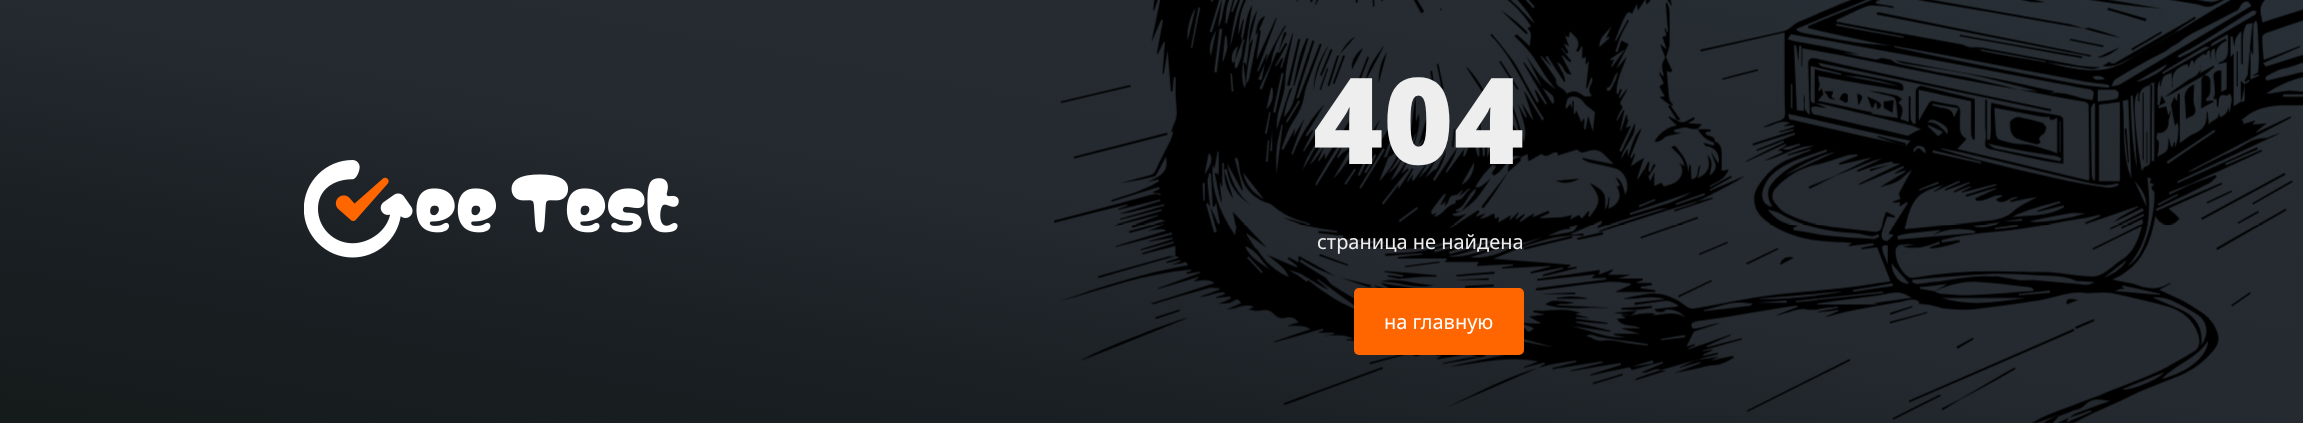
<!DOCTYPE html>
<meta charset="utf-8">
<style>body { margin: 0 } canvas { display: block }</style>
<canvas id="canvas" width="2303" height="423"></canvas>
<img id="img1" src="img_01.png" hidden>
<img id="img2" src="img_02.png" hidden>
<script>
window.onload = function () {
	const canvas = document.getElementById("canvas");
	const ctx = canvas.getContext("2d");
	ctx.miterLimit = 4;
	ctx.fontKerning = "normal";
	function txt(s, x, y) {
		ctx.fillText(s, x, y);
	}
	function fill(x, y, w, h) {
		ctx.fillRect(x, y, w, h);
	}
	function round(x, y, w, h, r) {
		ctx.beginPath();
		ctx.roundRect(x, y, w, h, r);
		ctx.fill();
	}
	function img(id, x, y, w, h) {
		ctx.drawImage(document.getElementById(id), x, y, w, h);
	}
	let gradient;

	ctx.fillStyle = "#FFFFFF";
	fill(0, 0, 2303, 423);
	gradient = ctx.createLinearGradient(1076, 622, 1227, -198);
	gradient.addColorStop(0, "#151A1A");
	gradient.addColorStop(0.25, "#1A1F24");
	gradient.addColorStop(0.5, "#252A30");
	gradient.addColorStop(0.75, "#252B30");
	gradient.addColorStop(1, "#282F36");
	ctx.fillStyle = gradient;
	fill(0, 0, 2303, 423);
	img("img1", 1054, 0, 1249, 423);
	img("img2", 304, 160, 375, 98);
	ctx.fillStyle = "#FF6600";
	round(1354, 288, 170, 67, 5);
	ctx.font = "900 120px Noto Sans";
	ctx.fillStyle = "#EEEEEE";
	txt("404", 1313, 164);
	ctx.font = "20px Noto Sans";
	txt("страница не найдена", 1317, 249);
	ctx.fillStyle = "#FFFFFF";
	txt("на главную", 1384, 329);
};
</script>
